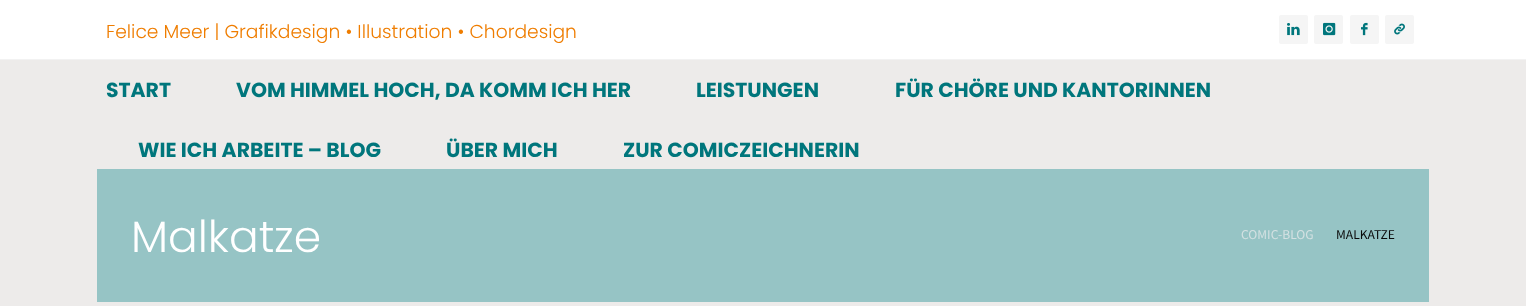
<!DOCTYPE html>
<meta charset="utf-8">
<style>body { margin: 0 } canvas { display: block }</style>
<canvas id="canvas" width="1526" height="306"></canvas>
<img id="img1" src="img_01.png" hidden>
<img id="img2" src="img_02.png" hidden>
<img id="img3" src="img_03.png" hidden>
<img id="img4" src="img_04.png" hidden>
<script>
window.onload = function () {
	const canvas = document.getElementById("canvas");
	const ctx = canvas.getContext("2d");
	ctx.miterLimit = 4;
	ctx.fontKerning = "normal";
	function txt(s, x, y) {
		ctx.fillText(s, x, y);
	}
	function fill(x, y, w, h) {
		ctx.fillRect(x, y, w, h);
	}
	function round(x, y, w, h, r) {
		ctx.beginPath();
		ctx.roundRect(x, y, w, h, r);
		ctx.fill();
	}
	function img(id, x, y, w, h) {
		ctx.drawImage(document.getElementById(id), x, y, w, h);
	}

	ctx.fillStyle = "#EDEBEA";
	fill(0, 0, 1526, 306);
	ctx.fillStyle = "#FFFFFF";
	fill(0, 0, 1526, 59);
	ctx.fillStyle = "#F2F2F2";
	fill(0, 59, 1526, 1);
	ctx.fillStyle = "#F5F5F5";
	round(1279, 15, 29, 29, 2);
	img("img1", 1287, 23, 13, 13);
	round(1314, 15, 29, 29, 2);
	img("img2", 1323, 22, 13, 14);
	round(1350, 15, 29, 29, 2);
	img("img3", 1361, 22, 7, 14);
	round(1385, 15, 29, 29, 2);
	img("img4", 1394, 23, 11, 12);
	ctx.fillStyle = "#96C4C5";
	fill(97, 169, 1332, 133);
	ctx.font = "300 18.7px Poppins";
	ctx.fillStyle = "#EF7D00";
	txt("Felice Meer | Grafikdesign • Illustration • Chordesign", 106, 38);
	ctx.font = "bold 20.4px Poppins";
	ctx.fillStyle = "#00767C";
	txt("START", 106, 97);
	txt("VOM HIMMEL HOCH, DA KOMM ICH HER", 236, 97);
	txt("LEISTUNGEN", 696, 97);
	txt("FÜR CHÖRE UND KANTORINNEN", 895, 97);
	txt("WIE ICH ARBEITE – BLOG", 138, 157);
	txt("ÜBER MICH", 446, 157);
	txt("ZUR COMICZEICHNERIN", 623, 157);
	ctx.font = "300 44px Poppins";
	ctx.fillStyle = "#FFFFFF";
	txt("Malkatze", 131, 252);
	ctx.font = "13.5px Source Sans Pro";
	ctx.fillStyle = "#D4E1E2";
	txt("COMIC-BLOG", 1241, 239);
	ctx.fillStyle = "#0A0A0A";
	txt("MALKATZE", 1336, 239);
};
</script>
